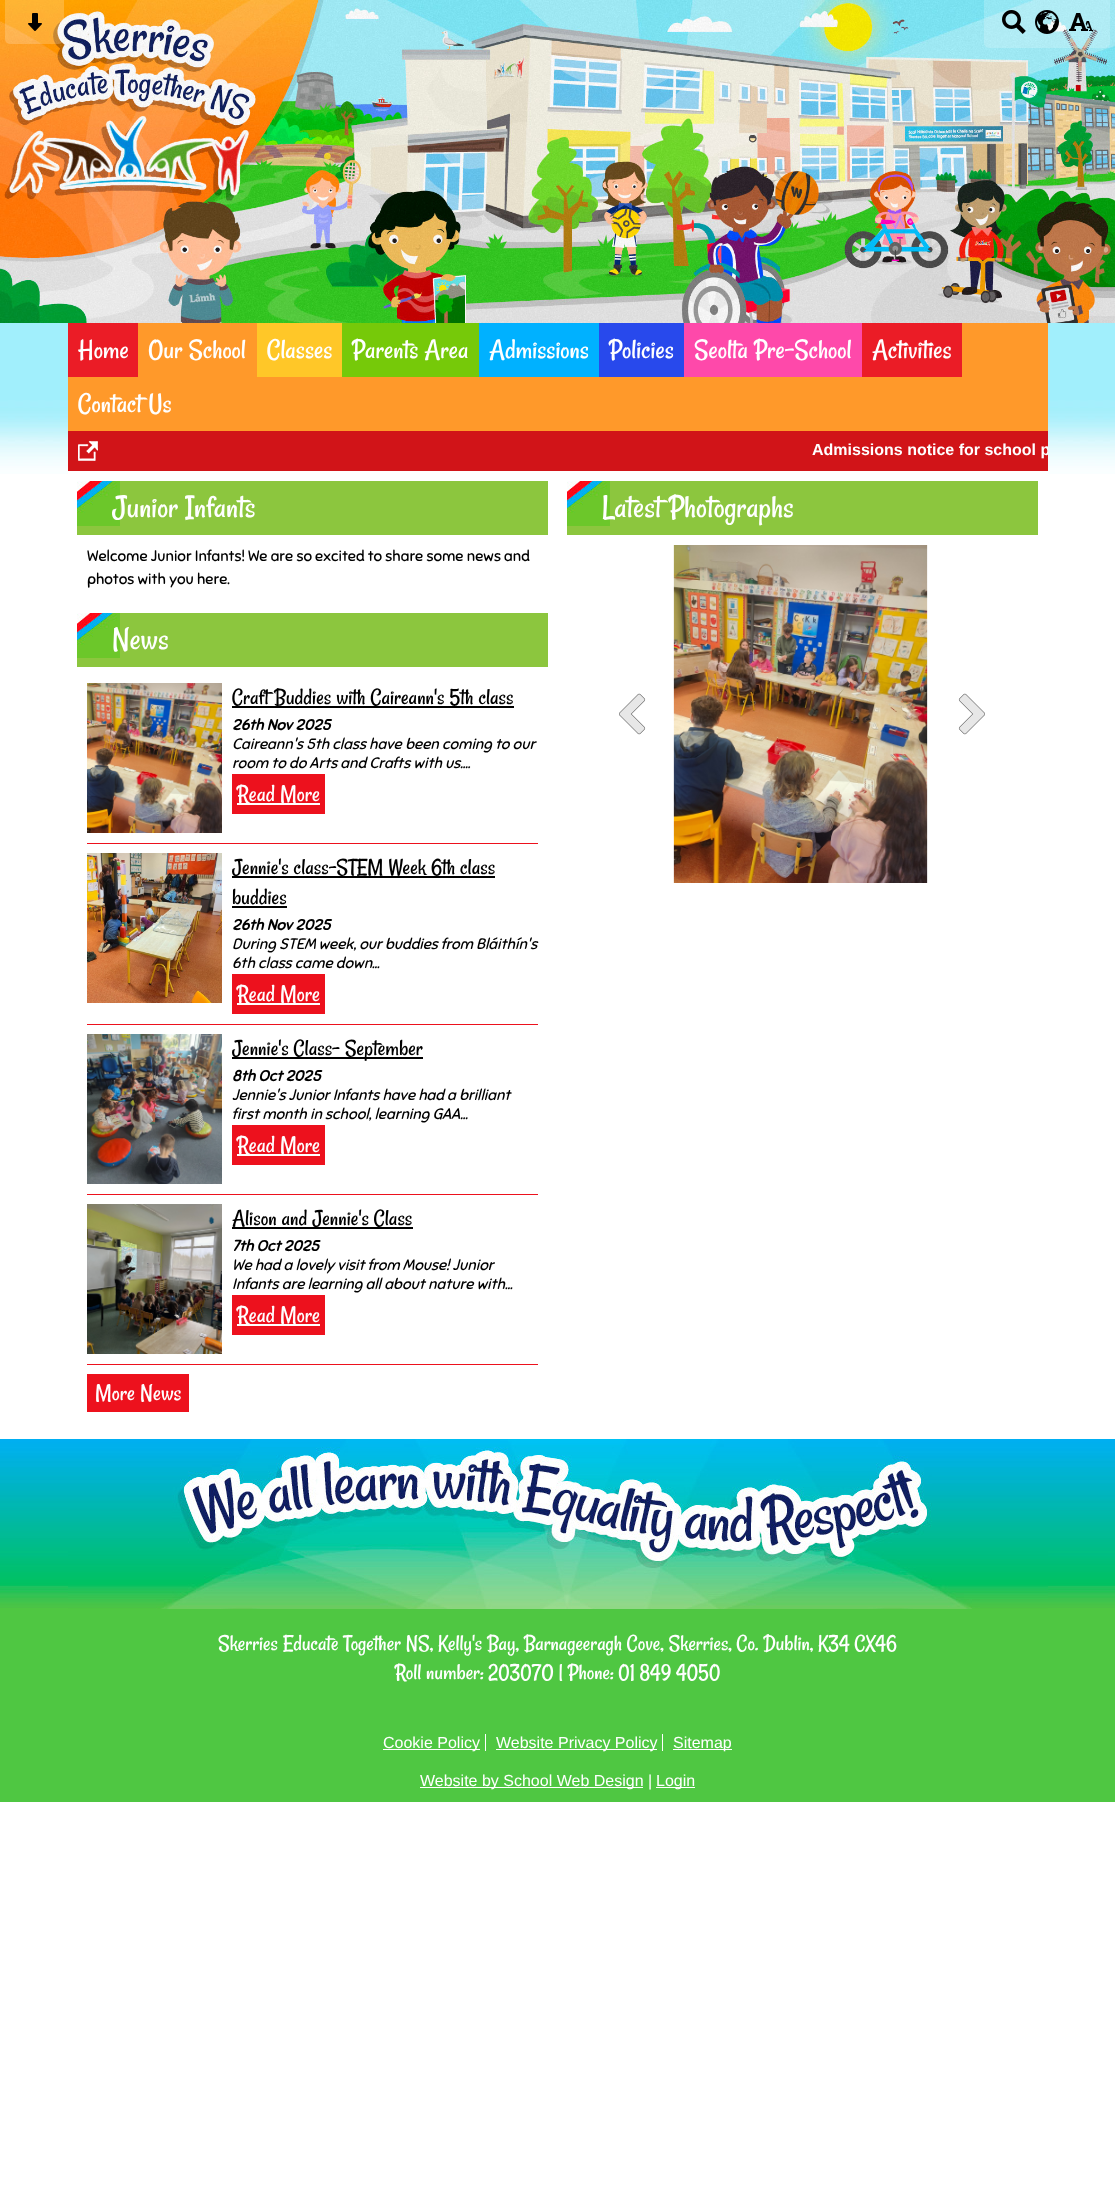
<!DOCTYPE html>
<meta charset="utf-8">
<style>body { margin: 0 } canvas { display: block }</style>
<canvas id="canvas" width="1115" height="2205"></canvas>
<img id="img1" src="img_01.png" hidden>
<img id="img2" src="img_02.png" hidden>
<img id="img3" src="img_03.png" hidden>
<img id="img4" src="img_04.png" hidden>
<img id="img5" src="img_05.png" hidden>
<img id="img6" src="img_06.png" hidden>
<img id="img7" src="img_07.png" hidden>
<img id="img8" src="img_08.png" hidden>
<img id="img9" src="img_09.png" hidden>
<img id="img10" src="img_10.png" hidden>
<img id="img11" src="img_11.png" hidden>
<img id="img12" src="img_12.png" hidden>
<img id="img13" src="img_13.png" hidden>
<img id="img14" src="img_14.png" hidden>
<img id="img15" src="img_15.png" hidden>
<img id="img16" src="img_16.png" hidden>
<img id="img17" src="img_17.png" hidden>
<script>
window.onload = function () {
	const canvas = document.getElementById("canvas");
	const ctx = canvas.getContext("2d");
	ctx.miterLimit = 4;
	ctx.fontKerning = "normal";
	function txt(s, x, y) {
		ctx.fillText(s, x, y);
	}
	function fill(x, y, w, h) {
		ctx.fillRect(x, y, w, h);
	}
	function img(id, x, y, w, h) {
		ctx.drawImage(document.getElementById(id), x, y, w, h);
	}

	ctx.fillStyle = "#FFFFFF";
	fill(0, 0, 1115, 2205);
	img("img1", 0, 323, 1115, 151);
	img("img2", 0, 0, 1115, 323);
	ctx.fillStyle = "rgba(255, 255, 255, 0.2)";
	ctx.beginPath();
	ctx.roundRect(5, 0, 59, 44, [0, 0, 5, 5]);
	ctx.fill();
	img("img3", 28, 13, 14, 18);
	ctx.beginPath();
	ctx.roundRect(984, 0, 126, 48, [0, 0, 5, 5]);
	ctx.fill();
	img("img4", 1002, 10, 24, 24);
	img("img5", 1035, 10, 24, 24);
	img("img6", 1069, 13, 24, 18);
	ctx.fillStyle = "#FF992A";
	fill(68, 323, 980, 108);
	ctx.fillStyle = "#EB1C26";
	fill(68, 323, 70, 54);
	ctx.fillStyle = "#FFC728";
	fill(257, 323, 85, 54);
	ctx.fillStyle = "#76C909";
	fill(342, 323, 137, 54);
	ctx.fillStyle = "#00B1FF";
	fill(479, 323, 120, 54);
	ctx.fillStyle = "#2849EC";
	fill(599, 323, 85, 54);
	ctx.fillStyle = "#FE49AA";
	fill(684, 323, 178, 54);
	ctx.fillStyle = "#EB1C26";
	fill(862, 323, 100, 54);
	ctx.fillStyle = "#D11418";
	fill(68, 431, 980, 40);
	img("img7", 78, 441, 20, 20);
	ctx.fillStyle = "#FFFFFF";
	fill(68, 471, 980, 3);
	ctx.fillStyle = "#8CC63E";
	fill(77, 481, 471, 54);
	img("img8", 77, 481, 43, 45);
	fill(77, 613, 471, 54);
	img("img8", 77, 613, 43, 45);
	ctx.fillStyle = "#ED111D";
	fill(87, 843, 451, 1);
	img("img9", 87, 683, 135, 150);
	ctx.fillStyle = "#000000";
	fill(232, 706, 282, 2);
	ctx.fillStyle = "#ED111D";
	fill(232, 774, 93, 40);
	ctx.fillStyle = "#FFFFFF";
	fill(237, 803, 83, 2);
	ctx.fillStyle = "#ED111D";
	fill(87, 1024, 451, 1);
	img("img10", 87, 853, 135, 150);
	ctx.fillStyle = "#000000";
	fill(232, 876, 263, 2);
	fill(232, 906, 55, 2);
	ctx.fillStyle = "#ED111D";
	fill(232, 974, 93, 40);
	ctx.fillStyle = "#FFFFFF";
	fill(237, 1003, 83, 2);
	ctx.fillStyle = "#ED111D";
	fill(87, 1194, 451, 1);
	img("img11", 87, 1034, 135, 150);
	ctx.fillStyle = "#000000";
	fill(232, 1057, 191, 2);
	ctx.fillStyle = "#ED111D";
	fill(232, 1125, 93, 40);
	ctx.fillStyle = "#FFFFFF";
	fill(237, 1154, 83, 2);
	ctx.fillStyle = "#ED111D";
	fill(87, 1364, 451, 1);
	img("img12", 87, 1204, 135, 150);
	ctx.fillStyle = "#000000";
	fill(232, 1227, 181, 2);
	ctx.fillStyle = "#ED111D";
	fill(232, 1295, 93, 40);
	ctx.fillStyle = "#FFFFFF";
	fill(237, 1324, 83, 2);
	ctx.fillStyle = "#ED111D";
	fill(87, 1374, 102, 38);
	ctx.fillStyle = "#8CC63E";
	fill(567, 481, 471, 54);
	img("img8", 567, 481, 43, 45);
	img("img13", 619, 693, 27, 42);
	img("img14", 673, 545, 255, 338);
	img("img15", 958, 693, 27, 42);
	ctx.fillStyle = "#4FC742";
	fill(0, 1608, 1115, 194);
	img("img16", 0, 1439, 1115, 169);
	img("img17", 68, 1439, 980, 170);
	ctx.fillStyle = "#FFFFFF";
	fill(485, 1734, 1, 17);
	fill(383, 1749, 97, 1);
	fill(662, 1734, 1, 17);
	fill(496, 1749, 161, 1);
	fill(673, 1749, 59, 1);
	fill(420, 1787, 223, 1);
	fill(656, 1787, 39, 1);
	ctx.font = "28.5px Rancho";
	txt("Home", 78, 358);
	txt("Our School", 148, 358);
	txt("Classes", 267, 358);
	txt("Parents Area", 352, 358);
	txt("Admissions", 489, 358);
	txt("Policies", 609, 358);
	txt("Seolta Pre-School", 694, 358);
	txt("Activities", 872, 358);
	txt("Contact Us", 78, 412);
	ctx.save();
	ctx.beginPath();
	ctx.rect(68, 431, 980, 40);
	ctx.clip();
	ctx.font = "bold 16px Liberation Sans";
	txt("Admissions notice for school p", 812, 455);
	ctx.restore();
	ctx.font = "33.5px Rancho";
	txt("Junior Infants", 112, 517);
	ctx.font = "15.2px Sniglet";
	ctx.fillStyle = "#000000";
	txt("Welcome Junior Infants! We are so excited to share some news and", 87, 561);
	txt("photos with you here.", 87, 584);
	ctx.font = "33.5px Rancho";
	ctx.fillStyle = "#FFFFFF";
	txt("News", 112, 649);
	ctx.font = "23.4px Rancho";
	ctx.fillStyle = "#000000";
	txt("Craft Buddies with Caireann's 5th class", 232, 704);
	ctx.font = "italic bold 15.2px Sniglet";
	txt("26th Nov 2025", 232, 730);
	ctx.font = "italic 15.2px Sniglet";
	txt("Caireann's 5th class have been coming to our", 232, 749);
	txt("room to do Arts and Crafts with us....", 232, 768);
	ctx.font = "24.5px Rancho";
	ctx.fillStyle = "#FFFFFF";
	txt("Read More", 237, 801);
	ctx.font = "23.4px Rancho";
	ctx.fillStyle = "#000000";
	txt("Jennie's class-STEM Week 6th class", 232, 874);
	txt("buddies", 232, 904);
	ctx.font = "italic bold 15.2px Sniglet";
	txt("26th Nov 2025", 232, 930);
	ctx.font = "italic 15.2px Sniglet";
	txt("During STEM week, our buddies from Bláithín's", 232, 949);
	txt("6th class came down...", 232, 968);
	ctx.font = "24.5px Rancho";
	ctx.fillStyle = "#FFFFFF";
	txt("Read More", 237, 1001);
	ctx.font = "23.4px Rancho";
	ctx.fillStyle = "#000000";
	txt("Jennie's Class- September", 232, 1055);
	ctx.font = "italic bold 15.2px Sniglet";
	txt("8th Oct 2025", 232, 1081);
	ctx.font = "italic 15.2px Sniglet";
	txt("Jennie's Junior Infants have had a brilliant", 232, 1100);
	txt("first month in school, learning GAA...", 232, 1119);
	ctx.font = "24.5px Rancho";
	ctx.fillStyle = "#FFFFFF";
	txt("Read More", 237, 1152);
	ctx.font = "23.4px Rancho";
	ctx.fillStyle = "#000000";
	txt("Alison and Jennie's Class", 232, 1225);
	ctx.font = "italic bold 15.2px Sniglet";
	txt("7th Oct 2025", 232, 1251);
	ctx.font = "italic 15.2px Sniglet";
	txt("We had a lovely visit from Mouse! Junior", 232, 1270);
	txt("Infants are learning all about nature with...", 232, 1289);
	ctx.font = "24.5px Rancho";
	ctx.fillStyle = "#FFFFFF";
	txt("Read More", 237, 1322);
	txt("More News", 95, 1400);
	ctx.font = "33.5px Rancho";
	txt("Latest Photographs", 602, 517);
	ctx.font = "23.05px Rancho";
	txt("Skerries Educate Together NS, Kelly's Bay, Barnageeragh Cove, Skerries, Co. Dublin, K34 CX46", 218, 1650);
	txt("Roll number: 20307O | Phone: 01 849 4050", 395, 1679);
	ctx.font = "16px Liberation Sans";
	txt("Cookie Policy", 383, 1748);
	txt("Website Privacy Policy", 496, 1748);
	txt("Sitemap", 673, 1748);
	txt("Website by School Web Design |", 420, 1786);
	txt("Login", 656, 1786);
};
</script>
